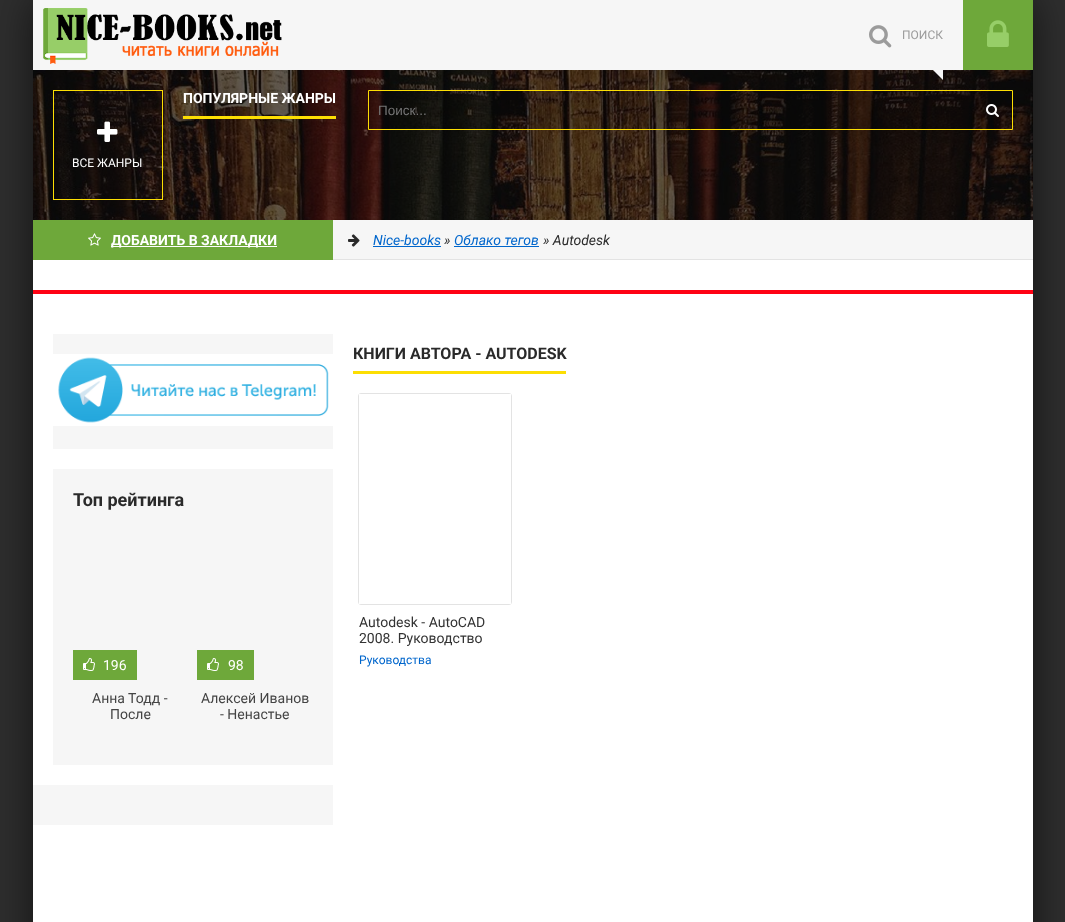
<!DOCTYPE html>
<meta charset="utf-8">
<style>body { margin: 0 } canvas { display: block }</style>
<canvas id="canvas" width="1065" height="922"></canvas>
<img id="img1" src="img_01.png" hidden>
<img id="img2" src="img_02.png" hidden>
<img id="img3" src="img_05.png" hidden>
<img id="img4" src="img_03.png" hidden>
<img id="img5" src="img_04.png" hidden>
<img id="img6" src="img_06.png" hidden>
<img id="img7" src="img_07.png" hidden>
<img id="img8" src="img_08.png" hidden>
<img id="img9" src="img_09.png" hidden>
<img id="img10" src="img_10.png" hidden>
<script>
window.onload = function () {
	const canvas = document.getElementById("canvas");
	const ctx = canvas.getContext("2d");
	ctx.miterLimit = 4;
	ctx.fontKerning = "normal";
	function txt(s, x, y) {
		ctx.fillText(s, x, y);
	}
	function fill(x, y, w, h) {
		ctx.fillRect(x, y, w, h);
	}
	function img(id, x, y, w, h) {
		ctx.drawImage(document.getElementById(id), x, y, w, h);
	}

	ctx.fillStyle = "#2E2E2E";
	fill(0, 0, 1065, 922);
	ctx.fillStyle = "rgba(0, 0, 0, 0.6)";
	ctx.filter = "blur(20px)";
	ctx.beginPath();
	ctx.rect(33, 0, 1000, 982);
	ctx.fill();
	ctx.filter = "none";
	ctx.fillStyle = "#FFFFFF";
	fill(33, 260, 1000, 662);
	ctx.fillStyle = "#F6F6F6";
	fill(33, 0, 930, 70);
	img("img1", 43, 8, 239, 56);
	img("img2", 869, 25, 23, 23);
	img("img3", 33, 70, 1000, 150);
	ctx.beginPath();
	ctx.moveTo(943, 70);
	ctx.lineTo(943, 80);
	ctx.lineTo(933, 70);
	ctx.closePath();
	ctx.fill();
	ctx.fillStyle = "#6EA83A";
	fill(963, 0, 70, 70);
	img("img4", 987, 20, 22, 27);
	ctx.fillStyle = "rgba(0, 0, 0, 0.1)";
	ctx.beginPath();
	ctx.rect(368.5, 90.5, 644, 39);
	ctx.fill();
	ctx.strokeStyle = "#FCDE03";
	ctx.stroke();
	img("img5", 986, 104, 13, 13);
	ctx.fillStyle = "#FCDE03";
	fill(183, 116, 153, 3);
	ctx.strokeRect(53.5, 90.5, 109, 109);
	img("img6", 97, 121, 21, 21);
	ctx.fillStyle = "#F6F6F6";
	fill(333, 220, 700, 39);
	ctx.fillStyle = "#E3E3E3";
	fill(333, 259, 700, 1);
	ctx.fillStyle = "#6EA83A";
	fill(33, 220, 300, 40);
	img("img7", 88, 233, 13, 13);
	ctx.fillStyle = "#FFFFFF";
	fill(111, 246, 166, 1);
	img("img8", 348, 234, 12, 13);
	ctx.fillStyle = "#0066CC";
	fill(373, 246, 68, 1);
	fill(454, 246, 85, 1);
	ctx.fillStyle = "#FF0214";
	fill(33, 290, 1000, 4);
	ctx.fillStyle = "#F6F6F6";
	fill(53, 334, 280, 115);
	img("img9", 53, 354, 280, 72);
	fill(53, 469, 280, 296);
	ctx.fillStyle = "#6EA83A";
	fill(73, 650, 64, 30);
	img("img10", 83, 658, 12, 13);
	fill(197, 650, 57, 30);
	img("img10", 207, 658, 12, 13);
	ctx.fillStyle = "#F6F6F6";
	fill(33, 785, 300, 40);
	ctx.fillStyle = "#FCDE03";
	fill(353, 371, 213, 3);
	ctx.beginPath();
	ctx.roundRect(358.5, 393.5, 153, 211, 2.5);
	ctx.strokeStyle = "#E3E3E3";
	ctx.stroke();
	ctx.beginPath();
	ctx.rect(361, 396, 148, 206);
	ctx.strokeStyle = "#FFFFFF";
	ctx.lineWidth = 4;
	ctx.stroke();
	ctx.font = "12px Roboto";
	ctx.fillStyle = "#9B9B9B";
	txt("ПОИСК", 902, 39);
	ctx.font = "13.5px Liberation Sans";
	ctx.fillStyle = "#757575";
	txt("Поиск...", 378, 115);
	ctx.font = "bold 14px Roboto";
	ctx.fillStyle = "#FFFFFF";
	txt("ПОПУЛЯРНЫЕ ЖАНРЫ", 183, 103);
	ctx.font = "12px Roboto";
	txt("ВСЕ ЖАНРЫ", 72, 167);
	ctx.font = "bold 14px Roboto";
	txt("ДОБАВИТЬ В ЗАКЛАДКИ", 111, 245);
	ctx.font = "italic 14px Roboto";
	ctx.fillStyle = "#0066CC";
	txt("Nice-books", 373, 245);
	ctx.fillStyle = "#2A2A2A";
	txt("»", 444, 245);
	ctx.fillStyle = "#0066CC";
	txt("Облако тегов", 454, 245);
	ctx.fillStyle = "#2A2A2A";
	txt("» Autodesk", 543, 245);
	ctx.font = "bold 18px Roboto";
	txt("Топ рейтинга", 73, 506);
	ctx.font = "14px Roboto";
	ctx.fillStyle = "#FFFFFF";
	txt("196", 103, 670);
	ctx.fillStyle = "#444444";
	txt("Анна Тодд -", 92, 703);
	txt("После", 110, 719);
	ctx.fillStyle = "#FFFFFF";
	txt("98", 228, 670);
	ctx.fillStyle = "#444444";
	txt("Алексей Иванов", 201, 703);
	txt("- Ненастье", 220, 719);
	ctx.font = "bold 16px Roboto";
	ctx.fillStyle = "#2A2A2A";
	txt("КНИГИ АВТОРА - AUTODESK", 353, 359);
	ctx.font = "14px Roboto";
	ctx.fillStyle = "#333333";
	txt("Autodesk - AutoCAD", 359, 627);
	txt("2008. Руководство", 359, 643);
	ctx.font = "12px Roboto";
	ctx.fillStyle = "#0066CC";
	txt("Руководства", 359, 664);
};
</script>
